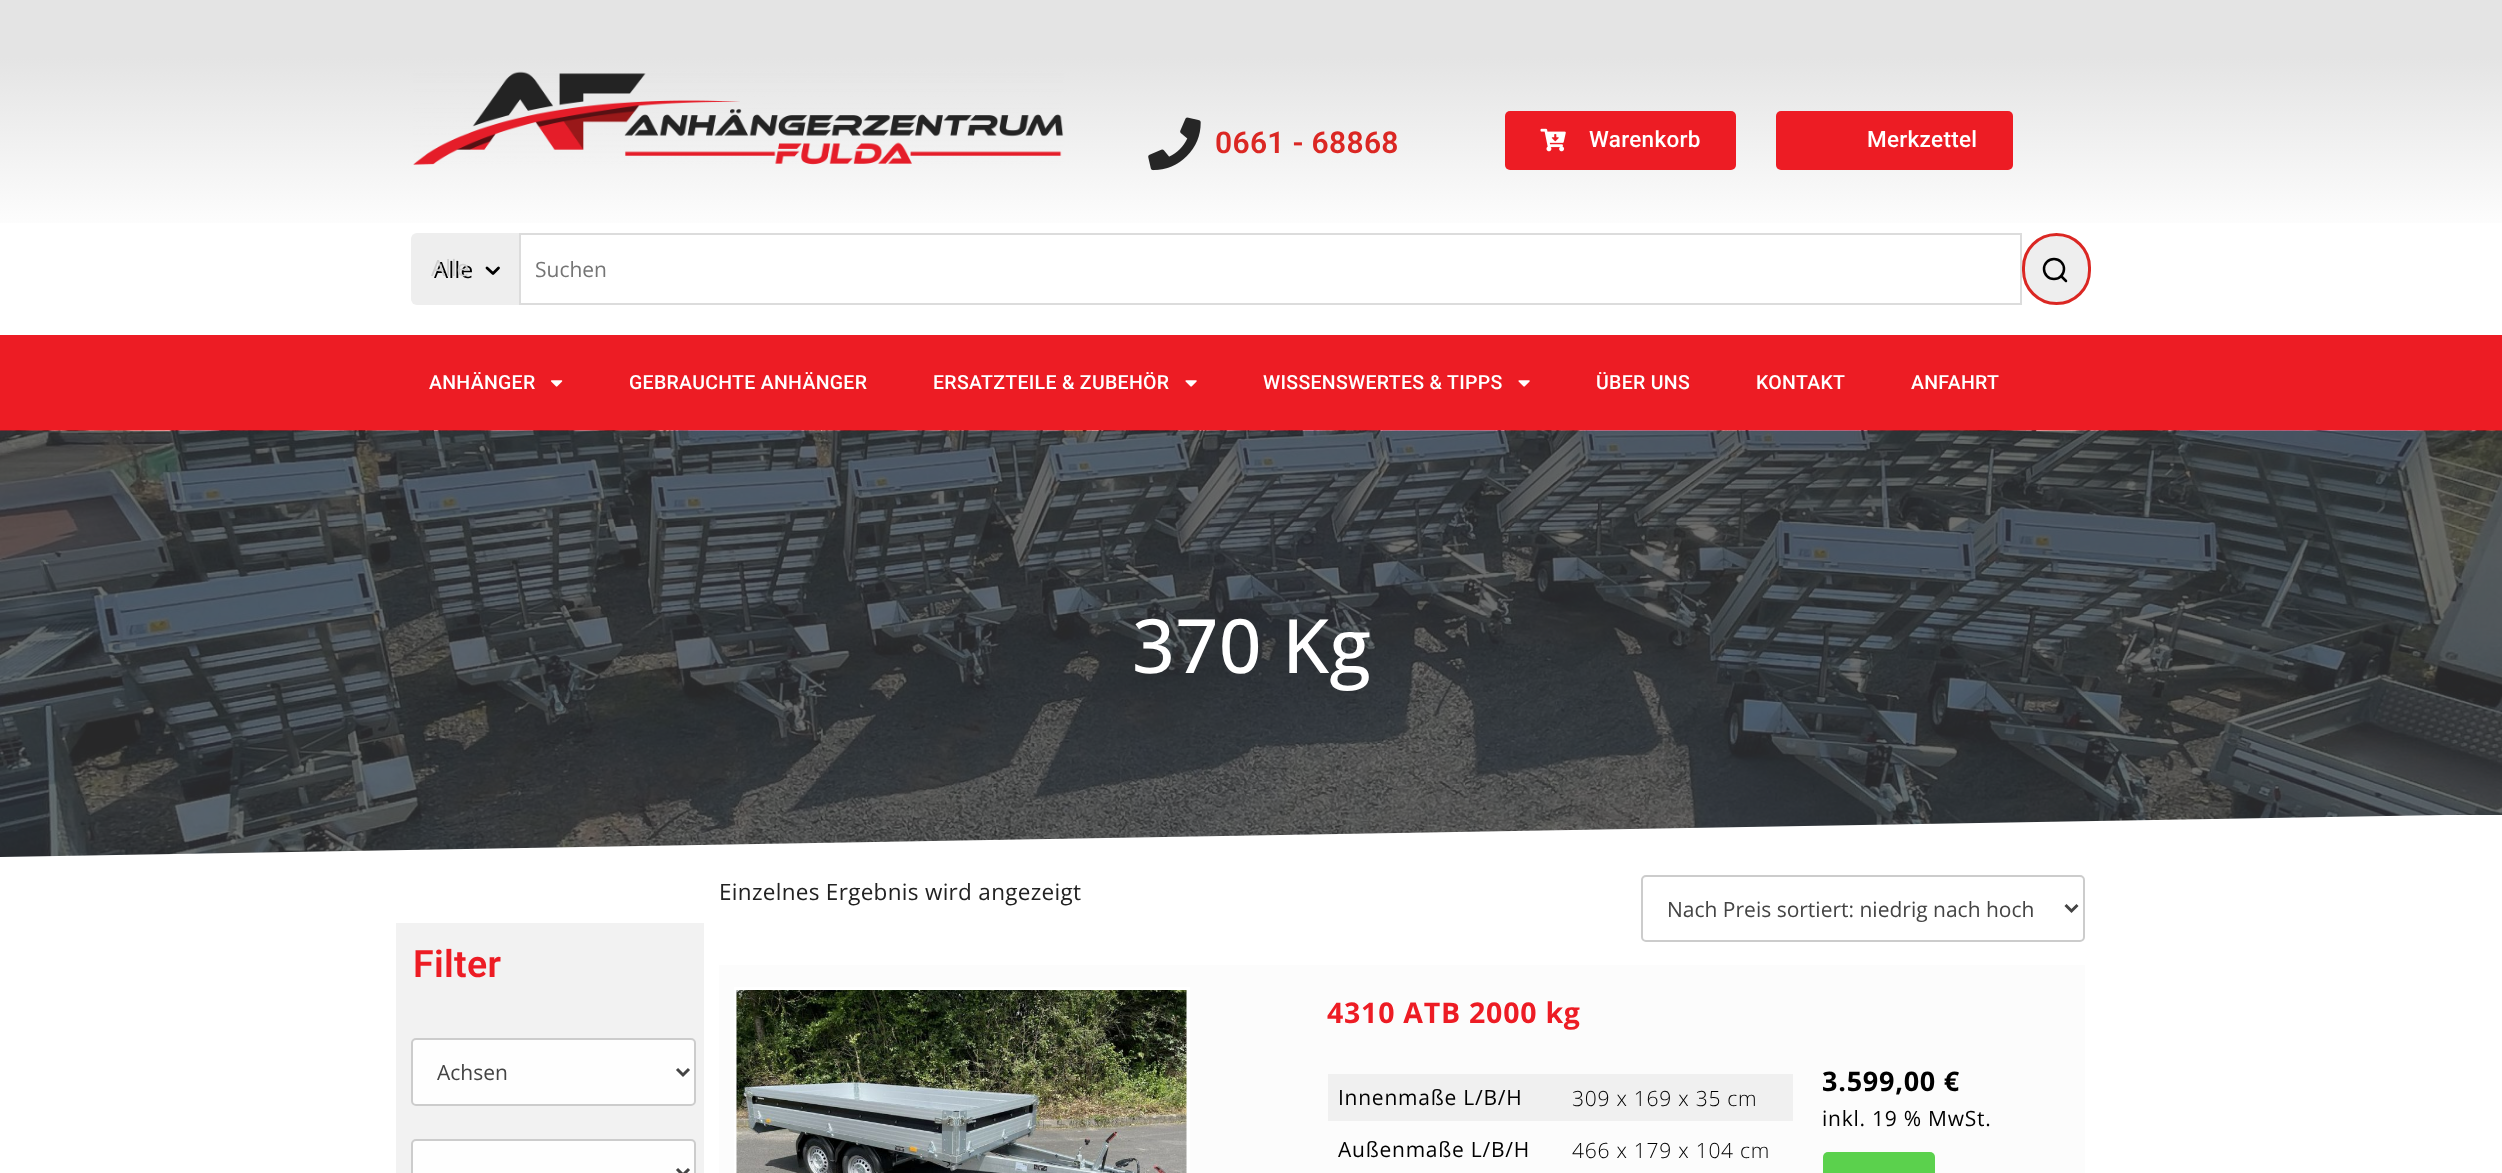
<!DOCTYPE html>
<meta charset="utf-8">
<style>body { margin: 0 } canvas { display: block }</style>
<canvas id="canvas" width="2502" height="1173"></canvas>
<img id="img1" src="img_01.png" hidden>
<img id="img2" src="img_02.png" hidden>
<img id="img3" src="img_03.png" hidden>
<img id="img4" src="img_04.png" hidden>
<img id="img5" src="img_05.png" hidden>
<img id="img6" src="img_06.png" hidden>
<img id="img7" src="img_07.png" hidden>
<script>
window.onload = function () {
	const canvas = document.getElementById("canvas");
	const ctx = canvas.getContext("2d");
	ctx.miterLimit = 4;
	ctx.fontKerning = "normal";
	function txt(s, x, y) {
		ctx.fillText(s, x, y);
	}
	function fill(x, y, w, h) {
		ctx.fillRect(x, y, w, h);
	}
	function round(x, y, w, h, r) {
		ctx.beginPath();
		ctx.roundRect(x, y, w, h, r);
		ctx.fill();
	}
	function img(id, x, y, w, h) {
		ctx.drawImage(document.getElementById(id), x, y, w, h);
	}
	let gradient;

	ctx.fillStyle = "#FFFFFF";
	fill(0, 0, 2502, 1173);
	gradient = ctx.createLinearGradient(1251, 0, 1251, 240);
	gradient.addColorStop(0.24, "#E4E4E4");
	gradient.addColorStop(1, "#FFFFFF");
	ctx.fillStyle = gradient;
	fill(0, 0, 2502, 223);
	img("img1", 413, 71, 651, 94);
	img("img2", 1148, 117, 53, 54);
	ctx.fillStyle = "#ED1C24";
	round(1505, 111, 231, 59, 5);
	img("img3", 1540, 128, 26, 24);
	round(1776, 111, 237, 59, 5);
	ctx.fillStyle = "#EEEEEE";
	ctx.beginPath();
	ctx.roundRect(411, 233, 108, 72, [6, 0, 0, 6]);
	ctx.fill();
	ctx.beginPath();
	ctx.moveTo(487, 268);
	ctx.lineTo(493, 273.5);
	ctx.lineTo(498.5, 268);
	ctx.strokeStyle = "#000000";
	ctx.lineWidth = 2.8;
	ctx.lineCap = "round";
	ctx.lineJoin = "round";
	ctx.stroke();
	ctx.strokeStyle = "#DCDCDC";
	ctx.lineWidth = 2;
	ctx.lineJoin = "miter";
	ctx.strokeRect(520, 234, 1501, 70);
	ctx.beginPath();
	ctx.roundRect(2023.5, 234.5, 66, 69, 33);
	ctx.fill();
	ctx.strokeStyle = "#DB2723";
	ctx.lineWidth = 3;
	ctx.stroke();
	ctx.beginPath();
	ctx.arc(2054, 269, 10, 0, Math.PI * 2);
	ctx.strokeStyle = "#000000";
	ctx.lineWidth = 2.5;
	ctx.stroke();
	ctx.beginPath();
	ctx.moveTo(2066, 281);
	ctx.lineTo(2061, 276);
	ctx.lineJoin = "round";
	ctx.stroke();
	ctx.fillStyle = "#ED1C24";
	fill(0, 335, 2502, 96);
	img("img4", 551, 380, 12, 7);
	img("img5", 1185, 380, 12, 7);
	img("img5", 1518, 380, 12, 7);
	img("img6", 0, 430, 2502, 427);
	ctx.save();
	ctx.beginPath();
	ctx.rect(0, 815, 2502, 45);
	ctx.clip();
	ctx.fillStyle = "#FFFFFF";
	ctx.beginPath();
	ctx.moveTo(-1, 857);
	ctx.lineTo(-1, 860);
	ctx.lineTo(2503, 860);
	ctx.lineTo(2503, 814);
	ctx.closePath();
	ctx.fill();
	ctx.restore();
	ctx.fillStyle = "#F2F2F2";
	fill(396, 923, 308, 250);
	ctx.fillStyle = "#FEFEFE";
	ctx.beginPath();
	ctx.roundRect(412, 1039, 283, 66, 4);
	ctx.fill();
	ctx.strokeStyle = "#CCCCCC";
	ctx.lineWidth = 2;
	ctx.lineJoin = "miter";
	ctx.stroke();
	ctx.beginPath();
	ctx.moveTo(677, 1069);
	ctx.lineTo(683, 1075);
	ctx.lineTo(689, 1069);
	ctx.strokeStyle = "#444444";
	ctx.lineWidth = 3;
	ctx.lineCap = "butt";
	ctx.stroke();
	round(413, 1140, 282, 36, 3);
	ctx.beginPath();
	ctx.roundRect(412, 1140, 283, 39, 4);
	ctx.strokeStyle = "#CCCCCC";
	ctx.lineWidth = 2;
	ctx.stroke();
	ctx.beginPath();
	ctx.moveTo(677, 1169);
	ctx.lineTo(683, 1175);
	ctx.lineTo(689, 1169);
	ctx.strokeStyle = "#444444";
	ctx.lineWidth = 3;
	ctx.stroke();
	ctx.beginPath();
	ctx.roundRect(1642, 876, 442, 65, 4);
	ctx.strokeStyle = "#CCCCCC";
	ctx.lineWidth = 2;
	ctx.stroke();
	ctx.beginPath();
	ctx.moveTo(2065.5, 905);
	ctx.lineTo(2071.5, 911);
	ctx.lineTo(2077.5, 905);
	ctx.strokeStyle = "#444444";
	ctx.lineWidth = 3;
	ctx.stroke();
	ctx.fillStyle = "#FCFCFC";
	fill(719, 965, 1366, 208);
	ctx.strokeStyle = "#FFFFFF";
	ctx.strokeRect(735.5, 988.5, 453, 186);
	img("img7", 736, 990, 451, 183);
	ctx.fillStyle = "#F0F0F0";
	fill(1328, 1074, 465, 47);
	ctx.fillStyle = "#5BD14D";
	round(1823, 1152, 112, 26, 5);
	ctx.letterSpacing = "0.3px";
	ctx.font = "600 30px Roboto";
	ctx.fillStyle = "#DB2723";
	txt("0661 - 68868", 1215, 153);
	ctx.font = "500 22.5px Roboto";
	ctx.fillStyle = "#FFFFFF";
	txt("Warenkorb", 1589, 147);
	txt("Merkzettel", 1867, 147);
	ctx.font = "22.5px Open Sans";
	ctx.fillStyle = "#000000";
	txt("Alle", 434, 278);
	ctx.letterSpacing = "0px";
	ctx.fillStyle = "#CECECE";
	txt("Alle", 431, 276);
	ctx.font = "21px Open Sans";
	ctx.fillStyle = "#757575";
	txt("Suchen", 535, 277);
	ctx.letterSpacing = "0.3px";
	ctx.font = "500 19.5px Roboto";
	ctx.fillStyle = "#FFFFFF";
	txt("ANHÄNGER", 429, 389);
	txt("GEBRAUCHTE ANHÄNGER", 629, 389);
	txt("ERSATZTEILE & ZUBEHÖR", 933, 389);
	txt("WISSENSWERTES & TIPPS", 1263, 389);
	txt("ÜBER UNS", 1596, 389);
	txt("KONTAKT", 1756, 389);
	txt("ANFAHRT", 1911, 389);
	ctx.letterSpacing = "0.5px";
	ctx.font = "500 75px Open Sans";
	txt("370 Kg", 1132, 673);
	ctx.letterSpacing = "0.3px";
	ctx.font = "600 37.5px Roboto";
	ctx.fillStyle = "#ED1C24";
	txt("Filter", 413, 977);
	ctx.letterSpacing = "0px";
	ctx.font = "21px Open Sans";
	ctx.fillStyle = "#444444";
	txt("Achsen", 437, 1080);
	ctx.letterSpacing = "0.3px";
	ctx.font = "22.5px Open Sans";
	ctx.fillStyle = "#222222";
	txt("Einzelnes Ergebnis wird angezeigt", 719, 900);
	ctx.letterSpacing = "0px";
	ctx.font = "21px Open Sans";
	ctx.fillStyle = "#444444";
	txt("Nach Preis sortiert: niedrig nach hoch", 1667, 917);
	ctx.letterSpacing = "0.75px";
	ctx.font = "bold 28.5px Open Sans";
	ctx.fillStyle = "#ED1C24";
	txt("4310 ATB 2000 kg", 1327, 1023);
	ctx.font = "21px Open Sans";
	ctx.fillStyle = "#000000";
	txt("Innenmaße L/B/H", 1338, 1105);
	ctx.font = "300 21px Open Sans";
	txt("309 x 169 x 35 cm", 1572, 1106);
	ctx.font = "21px Open Sans";
	txt("Außenmaße L/B/H", 1338, 1157);
	ctx.font = "300 21px Open Sans";
	txt("466 x 179 x 104 cm", 1572, 1158);
	ctx.font = "bold 27px Open Sans";
	txt("3.599,00 €", 1822, 1091);
	ctx.font = "21px Open Sans";
	txt("inkl. 19 % MwSt.", 1822, 1126);
};
</script>
